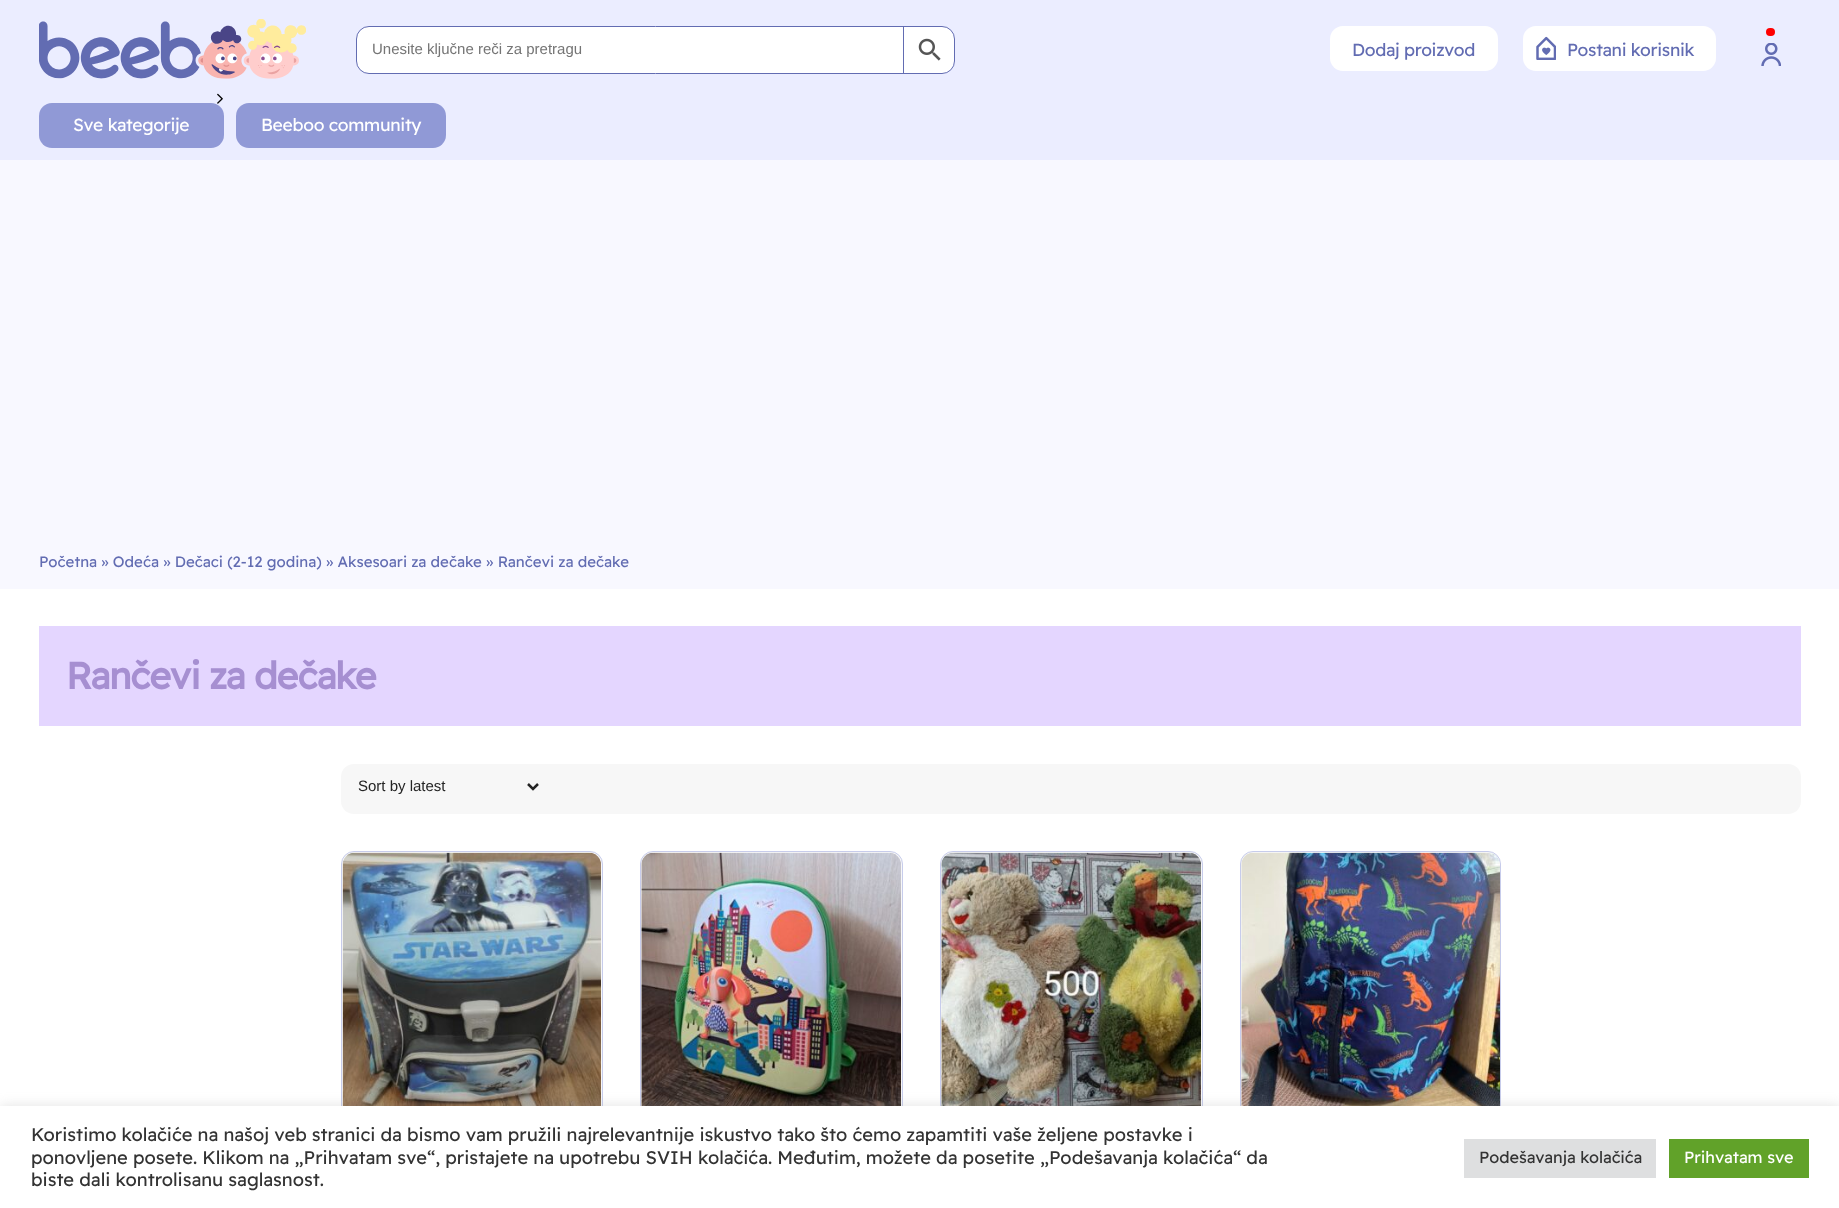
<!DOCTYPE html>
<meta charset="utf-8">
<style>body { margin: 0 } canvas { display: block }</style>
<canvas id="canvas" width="1839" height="1208"></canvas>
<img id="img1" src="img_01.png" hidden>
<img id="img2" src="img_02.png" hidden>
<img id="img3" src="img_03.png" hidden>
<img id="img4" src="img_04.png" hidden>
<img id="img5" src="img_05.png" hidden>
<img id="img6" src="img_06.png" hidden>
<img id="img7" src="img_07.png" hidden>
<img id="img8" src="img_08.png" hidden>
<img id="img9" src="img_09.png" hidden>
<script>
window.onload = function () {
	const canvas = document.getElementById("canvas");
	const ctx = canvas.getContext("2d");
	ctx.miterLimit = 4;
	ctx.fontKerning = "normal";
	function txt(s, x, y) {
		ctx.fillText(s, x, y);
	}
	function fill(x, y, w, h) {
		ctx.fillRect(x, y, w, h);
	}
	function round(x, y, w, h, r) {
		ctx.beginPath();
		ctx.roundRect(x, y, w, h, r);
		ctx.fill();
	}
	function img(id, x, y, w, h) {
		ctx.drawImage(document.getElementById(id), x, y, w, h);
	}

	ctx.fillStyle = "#FFFFFF";
	fill(0, 0, 1839, 1208);
	ctx.fillStyle = "#EBEDFF";
	fill(0, 0, 1839, 160);
	img("img1", 39, 19, 267, 60);
	ctx.fillStyle = "#FFFFFF";
	ctx.beginPath();
	ctx.roundRect(356.5, 26.5, 598, 47, 12.5);
	ctx.fill();
	ctx.strokeStyle = "#626CB2";
	ctx.stroke();
	ctx.fillStyle = "#626CB2";
	fill(903, 26, 1, 48);
	img("img2", 918, 38, 23, 23);
	ctx.fillStyle = "#FFFFFF";
	round(1330, 26, 168, 45, 13);
	round(1523, 26, 193, 45, 13);
	img("img3", 1536, 36, 20, 24);
	ctx.fillStyle = "#FF0000";
	round(1766, 28, 9, 8, 4);
	img("img4", 1761, 43, 20, 23);
	ctx.fillStyle = "#9099D6";
	round(39, 103, 185, 45, 13);
	img("img5", 217, 93, 6, 11);
	round(236, 103, 210, 45, 13);
	ctx.fillStyle = "#F8F8FF";
	fill(0, 160, 1839, 429);
	ctx.fillStyle = "#E4D6FF";
	fill(39, 626, 1762, 100);
	ctx.fillStyle = "#F7F7F7";
	round(341, 764, 1460, 50, 13);
	ctx.beginPath();
	ctx.moveTo(528, 784);
	ctx.lineTo(533, 789);
	ctx.lineTo(538, 784);
	ctx.strokeStyle = "#242424";
	ctx.lineWidth = 2.5;
	ctx.stroke();
	ctx.beginPath();
	ctx.roundRect(341.5, 851.5, 261, 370, 12.5);
	ctx.fill();
	ctx.strokeStyle = "#C7CCEB";
	ctx.lineWidth = 1;
	ctx.stroke();
	img("img6", 342, 852, 259, 254);
	ctx.beginPath();
	ctx.roundRect(640.5, 851.5, 262, 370, 12.5);
	ctx.fill();
	ctx.stroke();
	img("img7", 641, 852, 260, 254);
	ctx.beginPath();
	ctx.roundRect(940.5, 851.5, 262, 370, 12.5);
	ctx.fill();
	ctx.stroke();
	img("img8", 941, 852, 260, 254);
	ctx.beginPath();
	ctx.roundRect(1240.5, 851.5, 260, 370, 12.5);
	ctx.fill();
	ctx.stroke();
	img("img9", 1241, 852, 259, 254);
	ctx.fillStyle = "rgba(172, 171, 171, 0.3)";
	ctx.filter = "blur(6px)";
	ctx.beginPath();
	ctx.rect(0, 1105, 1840, 103);
	ctx.fill();
	ctx.filter = "none";
	ctx.fillStyle = "#FFFFFF";
	fill(0, 1106, 1839, 102);
	ctx.fillStyle = "#DEDFE0";
	fill(1464, 1139, 192, 39);
	ctx.fillStyle = "#61A229";
	fill(1669, 1139, 140, 39);
	ctx.font = "15px Liberation Sans";
	ctx.fillStyle = "#757575";
	txt("Unesite ključne reči za pretragu", 372, 54);
	ctx.letterSpacing = "-0.3px";
	ctx.font = "17.5px Readex Pro";
	ctx.fillStyle = "#626CB2";
	txt("Dodaj proizvod", 1352, 56);
	txt("Postani korisnik", 1567, 56);
	ctx.fillStyle = "#FFFFFF";
	txt("Sve kategorije", 73, 131);
	txt("Beeboo community", 261, 131);
	ctx.letterSpacing = "0px";
	ctx.font = "15px Readex Pro";
	ctx.fillStyle = "#626CB2";
	txt("Početna » Odeća » Dečaci (2-12 godina) » Aksesoari za dečake » Rančevi za dečake", 39, 567);
	ctx.letterSpacing = "-1.1px";
	ctx.font = "bold 37.5px Readex Pro";
	ctx.fillStyle = "#A68FD1";
	txt("Rančevi za dečake", 66, 689);
	ctx.letterSpacing = "0px";
	ctx.font = "15px Liberation Sans";
	ctx.fillStyle = "#242424";
	txt("Sort by latest", 358, 791);
	ctx.font = "18.33px Readex Pro";
	ctx.fillStyle = "#333333";
	txt("Koristimo kolačiće na našoj veb stranici da bismo vam pružili najrelevantnije iskustvo tako što ćemo zapamtiti vaše željene postavke i", 31, 1141);
	txt("ponovljene posete. Klikom na „Prihvatam sve“, pristajete na upotrebu SVIH kolačića. Međutim, možete da posetite „Podešavanja kolačića“ da", 31, 1164);
	txt("biste dali kontrolisanu saglasnost.", 31, 1186);
	ctx.font = "16.25px Readex Pro";
	txt("Podešavanja kolačića", 1479, 1163);
	ctx.fillStyle = "#FFFFFF";
	txt("Prihvatam sve", 1684, 1163);
};
</script>
